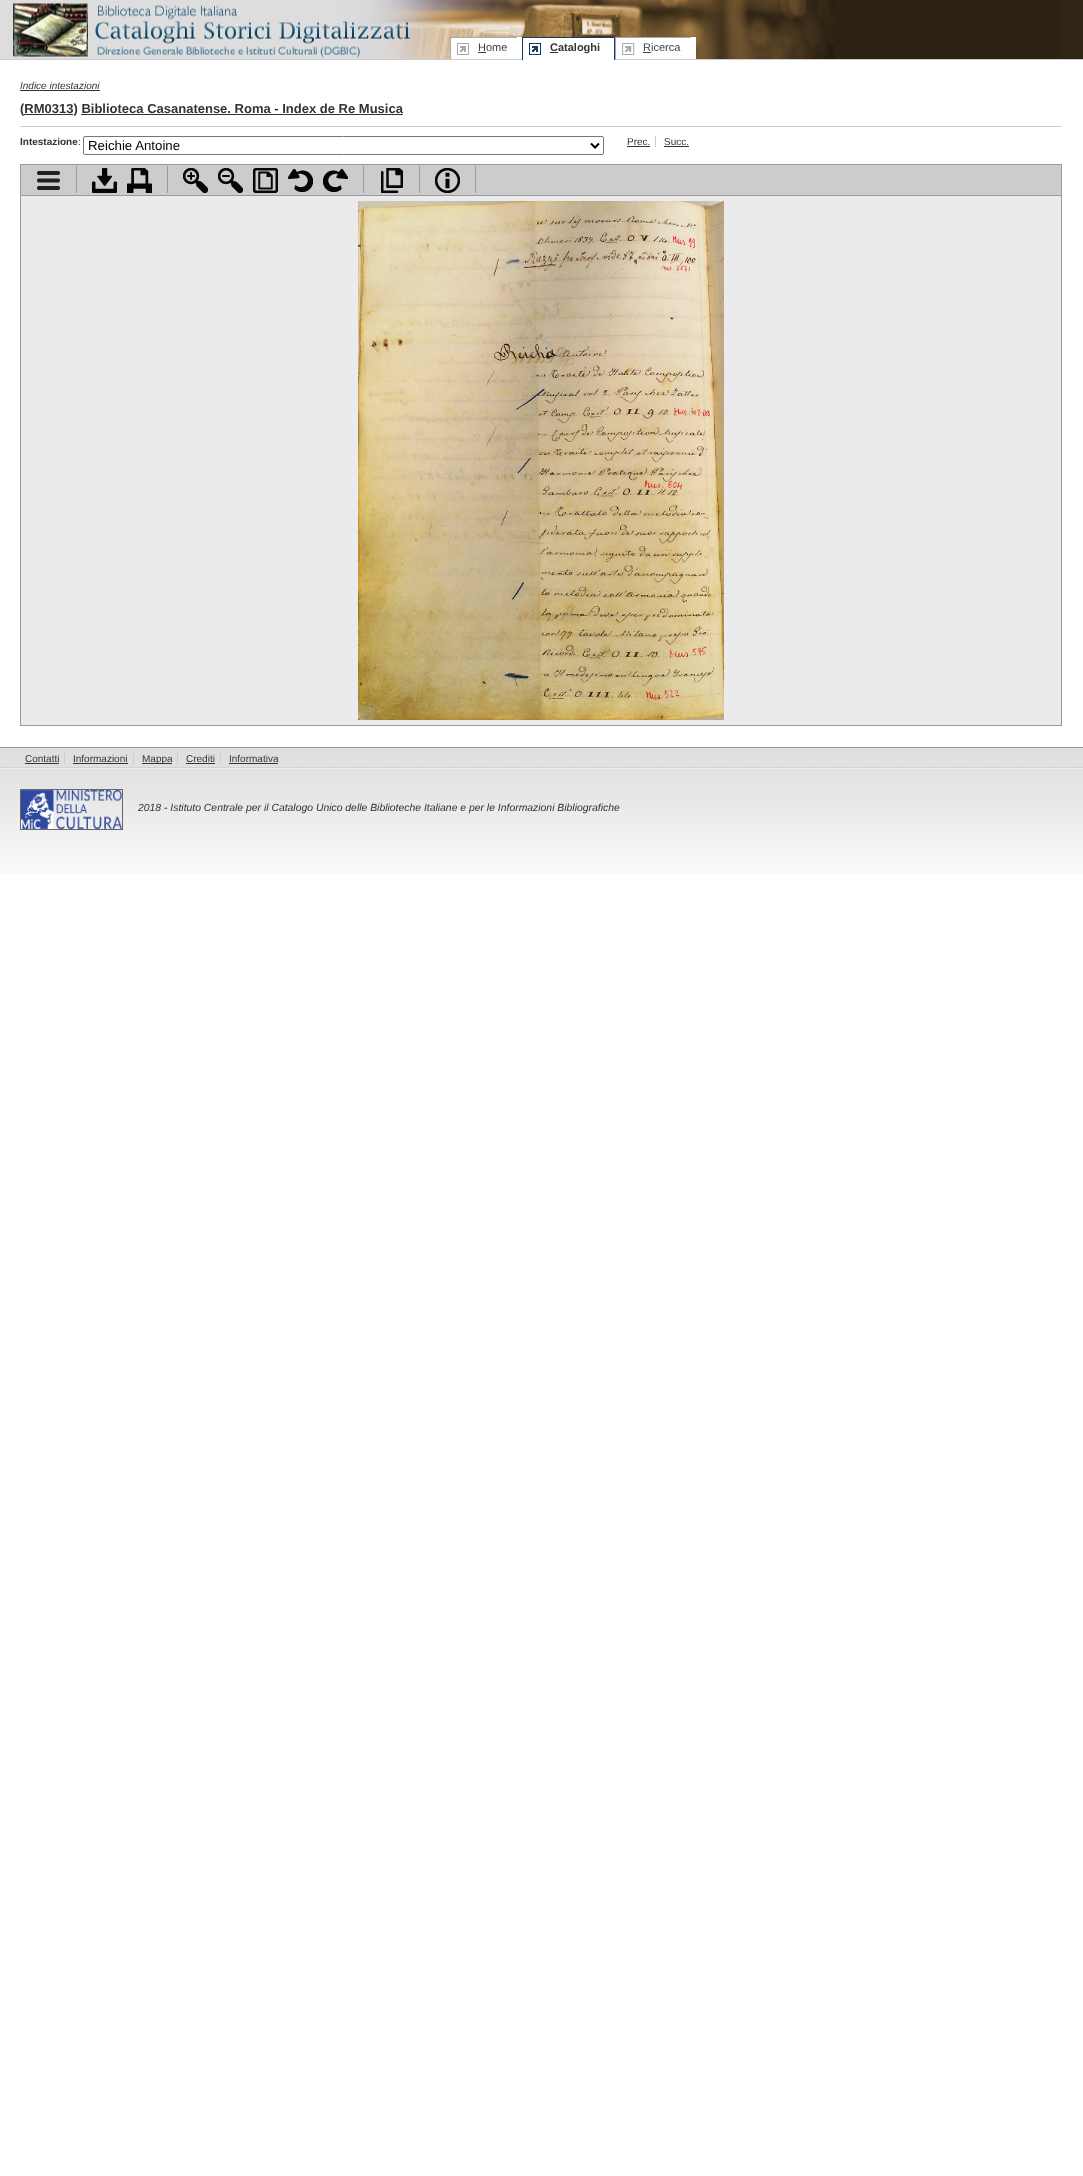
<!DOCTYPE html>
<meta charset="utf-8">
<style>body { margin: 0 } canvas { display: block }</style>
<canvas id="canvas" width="1083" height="2176"></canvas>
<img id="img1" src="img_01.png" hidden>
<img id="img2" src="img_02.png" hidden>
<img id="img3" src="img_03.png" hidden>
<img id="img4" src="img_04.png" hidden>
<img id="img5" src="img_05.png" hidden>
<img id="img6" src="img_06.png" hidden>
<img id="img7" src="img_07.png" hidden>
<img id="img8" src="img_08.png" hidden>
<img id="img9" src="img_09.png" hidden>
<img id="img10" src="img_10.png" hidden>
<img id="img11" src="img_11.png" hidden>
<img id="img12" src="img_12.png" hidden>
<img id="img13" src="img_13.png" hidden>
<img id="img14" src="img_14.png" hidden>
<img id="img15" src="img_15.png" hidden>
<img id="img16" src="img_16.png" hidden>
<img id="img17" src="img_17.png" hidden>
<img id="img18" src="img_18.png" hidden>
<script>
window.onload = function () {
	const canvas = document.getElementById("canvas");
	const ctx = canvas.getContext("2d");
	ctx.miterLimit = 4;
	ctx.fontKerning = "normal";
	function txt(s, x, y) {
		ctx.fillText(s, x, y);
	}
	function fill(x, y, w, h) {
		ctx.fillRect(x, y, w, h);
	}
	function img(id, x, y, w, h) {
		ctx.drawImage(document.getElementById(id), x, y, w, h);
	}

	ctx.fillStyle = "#FFFFFF";
	fill(0, 0, 1083, 2176);
	ctx.fillStyle = "#CCCCCC";
	fill(0, 59, 1083, 1);
	ctx.fillStyle = "#302515";
	fill(1060, 0, 23, 59);
	img("img1", 0, 0, 1060, 59);
	img("img2", 450, 37, 67, 22);
	ctx.fillStyle = "#FFFFFF";
	fill(517, 37, 5, 22);
	ctx.fillStyle = "#3F3F3F";
	fill(478, 52, 8, 1);
	img("img3", 522, 37, 93, 23);
	ctx.fillStyle = "#0F3F65";
	fill(614, 38, 1, 22);
	ctx.fillStyle = "#333333";
	fill(550, 52, 8, 1);
	img("img4", 615, 37, 76, 22);
	ctx.fillStyle = "#FFFFFF";
	fill(691, 37, 5, 22);
	ctx.fillStyle = "#3F3F3F";
	fill(643, 52, 8, 1);
	ctx.fillStyle = "#333333";
	fill(20, 90, 80, 1);
	fill(24, 114, 49, 1);
	fill(81, 114, 322, 1);
	ctx.fillStyle = "#CCCCCC";
	fill(20, 126, 1042, 1);
	ctx.beginPath();
	ctx.roundRect(83.5, 136.5, 520, 18, 1.5);
	ctx.strokeStyle = "#767676";
	ctx.stroke();
	ctx.beginPath();
	ctx.moveTo(591, 143.5);
	ctx.lineTo(595, 147.5);
	ctx.lineTo(599, 143.5);
	ctx.strokeStyle = "#000000";
	ctx.lineWidth = 2;
	ctx.stroke();
	fill(655, 136, 1, 11);
	ctx.fillStyle = "#333333";
	fill(627, 146, 23, 1);
	fill(664, 146, 25, 1);
	ctx.fillStyle = "#CCCCCC";
	ctx.beginPath();
	ctx.rect(20.5, 164.5, 1041, 31);
	ctx.fill();
	ctx.strokeStyle = "#999999";
	ctx.lineWidth = 1;
	ctx.stroke();
	ctx.fillStyle = "#999999";
	fill(76, 166, 1, 27);
	img("img5", 37, 171, 23, 19);
	fill(167, 166, 1, 27);
	img("img6", 92, 168, 25, 25);
	img("img7", 127, 168, 25, 25);
	fill(363, 166, 1, 27);
	img("img8", 183, 168, 25, 25);
	img("img9", 218, 168, 25, 25);
	img("img10", 253, 168, 25, 25);
	img("img11", 288, 169, 25, 23);
	img("img12", 323, 169, 25, 23);
	fill(419, 166, 1, 27);
	img("img13", 381, 168, 22, 25);
	fill(475, 166, 1, 27);
	img("img14", 435, 168, 25, 25);
	ctx.fillStyle = "#EBEAEC";
	fill(21, 196, 1040, 529);
	ctx.fillStyle = "#999999";
	fill(1061, 196, 1, 530);
	fill(20, 725, 1042, 1);
	fill(20, 196, 1, 530);
	img("img15", 358, 201, 366, 519);
	img("img16", 0, 748, 1083, 126);
	fill(0, 747, 1083, 1);
	img("img17", 0, 767, 1083, 2);
	ctx.fillStyle = "#CCCCCC";
	fill(64, 753, 1, 11);
	ctx.fillStyle = "#333333";
	fill(25, 763, 34, 1);
	ctx.fillStyle = "#CCCCCC";
	fill(133, 753, 1, 11);
	ctx.fillStyle = "#333333";
	fill(73, 763, 55, 1);
	ctx.fillStyle = "#CCCCCC";
	fill(177, 753, 1, 11);
	ctx.fillStyle = "#333333";
	fill(142, 763, 30, 1);
	ctx.fillStyle = "#CCCCCC";
	fill(220, 753, 1, 11);
	ctx.fillStyle = "#333333";
	fill(186, 763, 29, 1);
	fill(229, 763, 49, 1);
	ctx.strokeStyle = "#666666";
	ctx.strokeRect(20.5, 789.5, 102, 40);
	img("img18", 21, 790, 101, 39);
	ctx.font = "11px Liberation Sans";
	ctx.fillStyle = "#3F3F3F";
	txt("Home", 478, 51);
	ctx.font = "bold 11px Liberation Sans";
	ctx.fillStyle = "#333333";
	txt("Cataloghi", 550, 51);
	ctx.font = "11px Liberation Sans";
	ctx.fillStyle = "#3F3F3F";
	txt("Ricerca", 643, 51);
	ctx.font = "italic 10px Liberation Sans";
	ctx.fillStyle = "#333333";
	txt("Indice intestazioni", 20, 89);
	ctx.font = "bold 13px Liberation Sans";
	txt("(RM0313) Biblioteca Casanatense. Roma - Index de Re Musica", 20, 113);
	ctx.font = "bold 10px Liberation Sans";
	txt("Intestazione", 20, 145);
	ctx.font = "10px Liberation Sans";
	txt(":", 78, 145);
	ctx.font = "13.25px Liberation Sans";
	ctx.fillStyle = "#000000";
	txt("Reichie Antoine", 88, 150);
	ctx.font = "10px Liberation Sans";
	ctx.fillStyle = "#333333";
	txt("Prec.", 627, 145);
	txt("Succ.", 664, 145);
	txt("Contatti", 25, 762);
	txt("Informazioni", 73, 762);
	txt("Mappa", 142, 762);
	txt("Crediti", 186, 762);
	txt("Informativa", 229, 762);
	ctx.font = "italic 10.4px Liberation Sans";
	txt("2018 - Istituto Centrale per il Catalogo Unico delle Biblioteche Italiane e per le Informazioni Bibliografiche", 138, 811);
};
</script>
